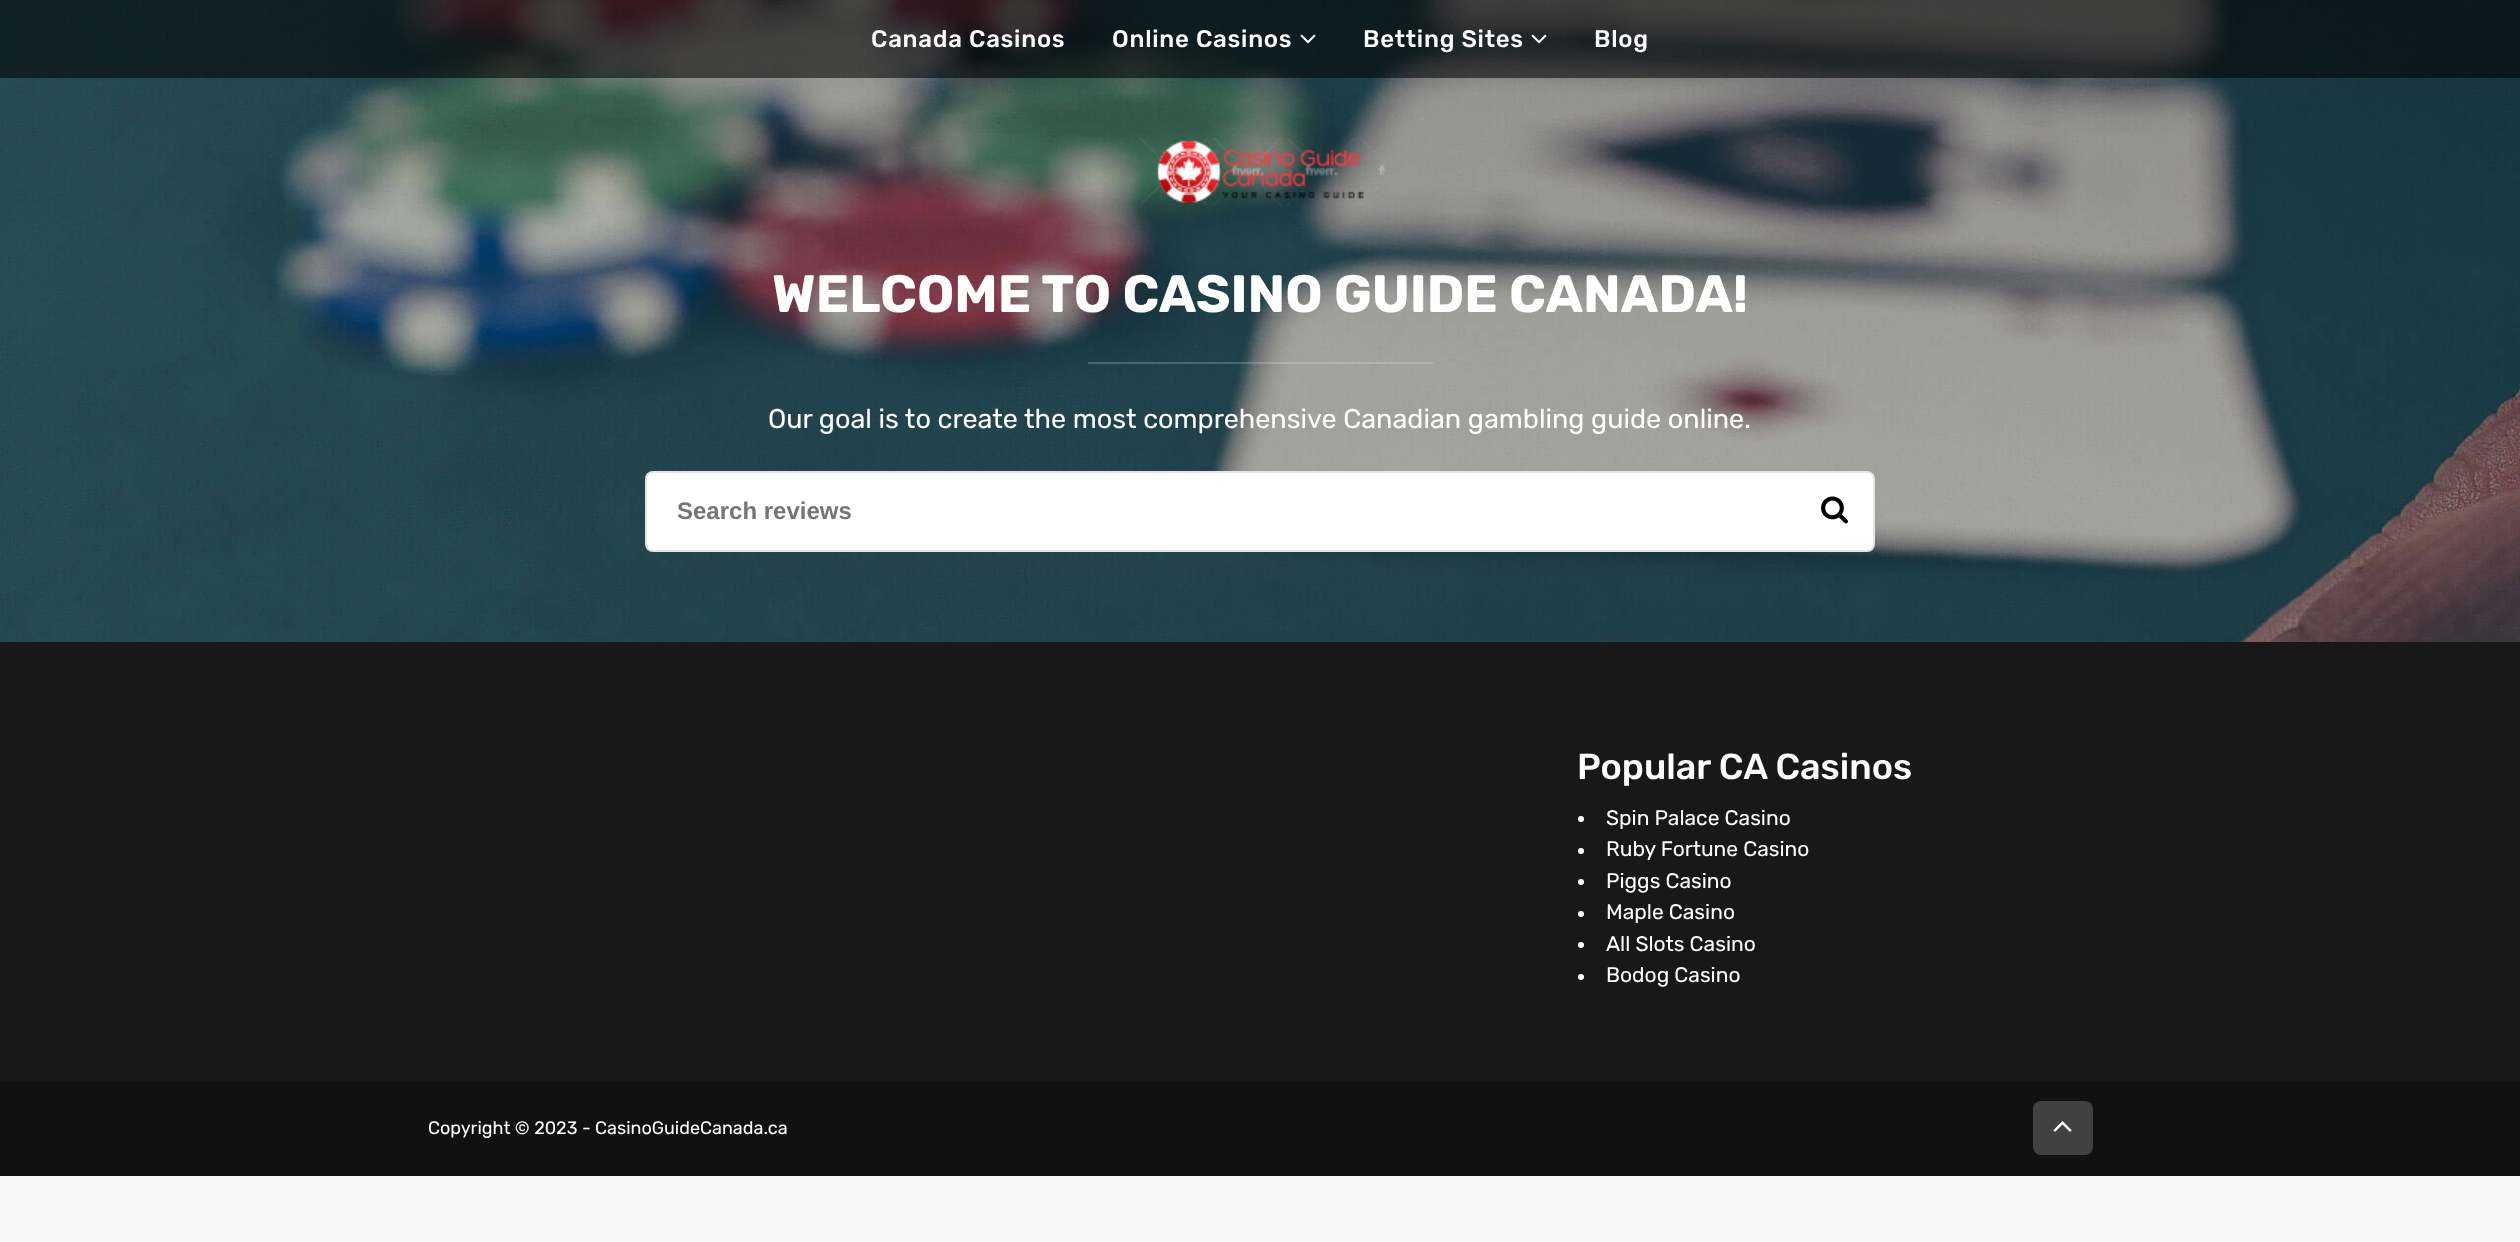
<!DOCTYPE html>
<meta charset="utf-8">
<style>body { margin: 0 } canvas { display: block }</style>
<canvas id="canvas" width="2520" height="1242"></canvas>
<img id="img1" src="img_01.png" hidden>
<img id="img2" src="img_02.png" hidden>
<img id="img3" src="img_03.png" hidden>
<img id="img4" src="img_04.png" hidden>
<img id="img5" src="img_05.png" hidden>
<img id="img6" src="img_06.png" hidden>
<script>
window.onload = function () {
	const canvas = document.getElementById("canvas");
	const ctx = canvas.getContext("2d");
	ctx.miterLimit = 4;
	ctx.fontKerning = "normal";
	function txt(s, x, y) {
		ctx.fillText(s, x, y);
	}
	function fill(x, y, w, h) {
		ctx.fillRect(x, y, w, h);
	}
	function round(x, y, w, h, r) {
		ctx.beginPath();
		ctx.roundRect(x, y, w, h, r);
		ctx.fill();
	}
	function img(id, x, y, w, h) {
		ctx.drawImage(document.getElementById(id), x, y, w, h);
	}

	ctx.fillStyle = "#F8F8F8";
	fill(0, 0, 2520, 1242);
	img("img1", 0, 0, 2520, 642);
	ctx.fillStyle = "rgba(0, 0, 0, 0.55)";
	fill(0, 0, 2520, 78);
	img("img2", 1300, 34, 16, 10);
	img("img3", 1531, 34, 16, 10);
	img("img4", 1140, 138, 245, 68);
	ctx.fillStyle = "rgba(255, 255, 255, 0.2)";
	fill(1088, 362, 345, 2);
	ctx.fillStyle = "#FFFFFF";
	round(645, 471, 1230, 81, 8);
	ctx.beginPath();
	ctx.roundRect(646, 472, 1228, 79, 7);
	ctx.strokeStyle = "rgba(0, 0, 0, 0.1)";
	ctx.lineWidth = 2;
	ctx.stroke();
	img("img5", 1821, 496, 27, 28);
	ctx.fillStyle = "#181818";
	fill(0, 642, 2520, 440);
	ctx.fillStyle = "#FFFFFF";
	ctx.beginPath();
	ctx.arc(1581, 819, 3, 0, Math.PI * 2);
	ctx.fill();
	ctx.beginPath();
	ctx.arc(1581, 851, 3, 0, Math.PI * 2);
	ctx.fill();
	ctx.beginPath();
	ctx.arc(1581, 882, 3, 0, Math.PI * 2);
	ctx.fill();
	ctx.beginPath();
	ctx.arc(1581, 914, 3, 0, Math.PI * 2);
	ctx.fill();
	ctx.beginPath();
	ctx.arc(1581, 945, 3, 0, Math.PI * 2);
	ctx.fill();
	ctx.beginPath();
	ctx.arc(1581, 977, 3, 0, Math.PI * 2);
	ctx.fill();
	ctx.fillStyle = "#111111";
	fill(0, 1082, 2520, 94);
	ctx.fillStyle = "#414141";
	round(2033, 1101, 60, 54, 8);
	img("img6", 2053, 1121, 19, 11);
	ctx.letterSpacing = "0.75px";
	ctx.font = "500 24px Rubik";
	ctx.fillStyle = "#FFFFFF";
	txt("Canada Casinos", 871, 47);
	txt("Online Casinos", 1112, 47);
	txt("Betting Sites", 1363, 47);
	txt("Blog", 1594, 47);
	ctx.letterSpacing = "0px";
	ctx.font = "bold 52.5px Rubik";
	txt("WELCOME TO CASINO GUIDE CANADA!", 772, 312);
	ctx.font = "27px Rubik";
	txt("Our goal is to create the most comprehensive Canadian gambling guide online.", 768, 428);
	ctx.font = "bold 24px Liberation Sans";
	ctx.fillStyle = "#757575";
	txt("Search reviews", 677, 519);
	ctx.font = "500 36px Rubik";
	ctx.fillStyle = "#FFFFFF";
	txt("Popular CA Casinos", 1577, 779);
	ctx.font = "21px Rubik";
	txt("Spin Palace Casino", 1606, 825);
	txt("Ruby Fortune Casino", 1606, 856);
	txt("Piggs Casino", 1606, 888);
	txt("Maple Casino", 1606, 919);
	txt("All Slots Casino", 1606, 951);
	txt("Bodog Casino", 1606, 982);
	ctx.font = "18px Rubik";
	txt("Copyright © 2023 - CasinoGuideCanada.ca", 428, 1134);
};
</script>
